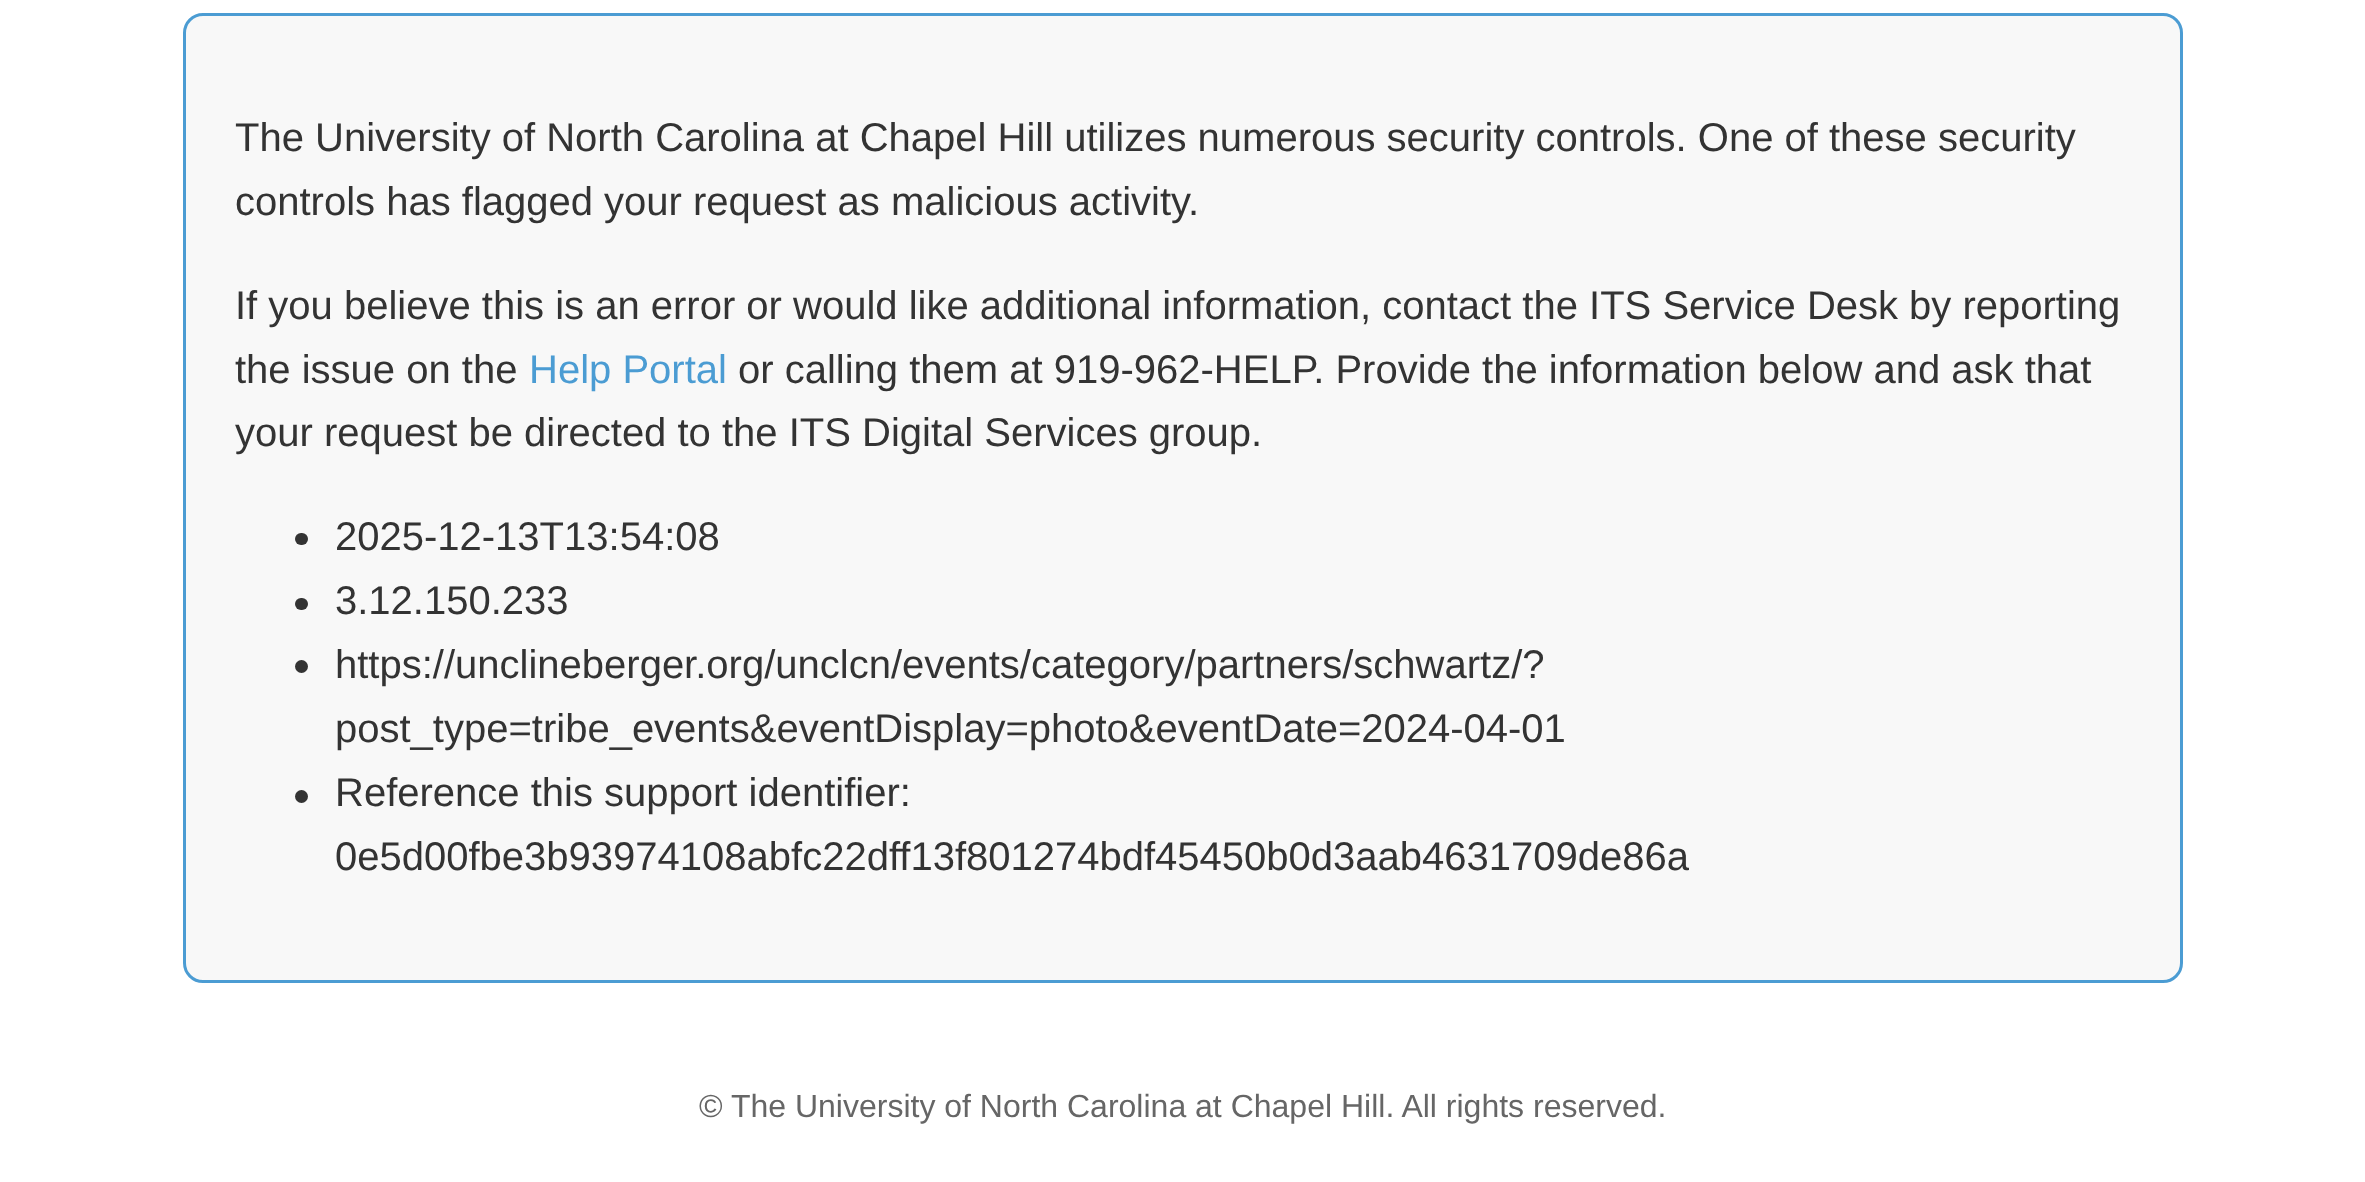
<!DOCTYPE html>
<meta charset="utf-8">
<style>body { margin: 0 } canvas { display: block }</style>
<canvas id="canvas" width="2365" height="1182"></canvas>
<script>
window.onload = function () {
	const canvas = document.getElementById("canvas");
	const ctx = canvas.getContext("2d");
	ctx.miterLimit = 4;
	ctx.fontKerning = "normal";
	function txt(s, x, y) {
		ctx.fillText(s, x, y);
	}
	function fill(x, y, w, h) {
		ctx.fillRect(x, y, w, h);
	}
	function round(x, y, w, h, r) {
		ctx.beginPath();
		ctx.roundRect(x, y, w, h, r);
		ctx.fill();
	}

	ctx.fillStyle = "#FFFFFF";
	fill(0, 0, 2365, 1182);
	ctx.fillStyle = "#F8F8F8";
	ctx.beginPath();
	ctx.roundRect(184.5, 14.5, 1997, 967, 18.5);
	ctx.fill();
	ctx.strokeStyle = "#4B9CD3";
	ctx.lineWidth = 3;
	ctx.stroke();
	ctx.fillStyle = "#333333";
	round(295, 533, 13, 12, 6);
	round(295, 598, 13, 12, 6);
	ctx.beginPath();
	ctx.arc(301.5, 666.5, 6.5, 0, Math.PI * 2);
	ctx.fill();
	ctx.beginPath();
	ctx.arc(301.5, 796.5, 6.5, 0, Math.PI * 2);
	ctx.fill();
	ctx.font = "40px Liberation Sans";
	txt("The University of North Carolina at Chapel Hill utilizes numerous security controls. One of these security", 235, 151);
	txt("controls has flagged your request as malicious activity.", 235, 215);
	txt("If you believe this is an error or would like additional information, contact the ITS Service Desk by reporting", 235, 319);
	txt("the issue on the", 235, 383);
	ctx.fillStyle = "#4B9CD3";
	txt("Help Portal", 529, 383);
	ctx.fillStyle = "#333333";
	txt("or calling them at 919-962-HELP. Provide the information below and ask that", 738, 383);
	txt("your request be directed to the ITS Digital Services group.", 235, 446);
	txt("2025-12-13T13:54:08", 335, 550);
	txt("3.12.150.233", 335, 614);
	txt("https://unclineberger.org/unclcn/events/category/partners/schwartz/?", 335, 678);
	txt("post_type=tribe_events&eventDisplay=photo&eventDate=2024-04-01", 335, 742);
	txt("Reference this support identifier:", 335, 806);
	txt("0e5d00fbe3b93974108abfc22dff13f801274bdf45450b0d3aab4631709de86a", 335, 870);
	ctx.font = "32px Liberation Sans";
	ctx.fillStyle = "#666666";
	txt("© The University of North Carolina at Chapel Hill. All rights reserved.", 699, 1117);
};
</script>
